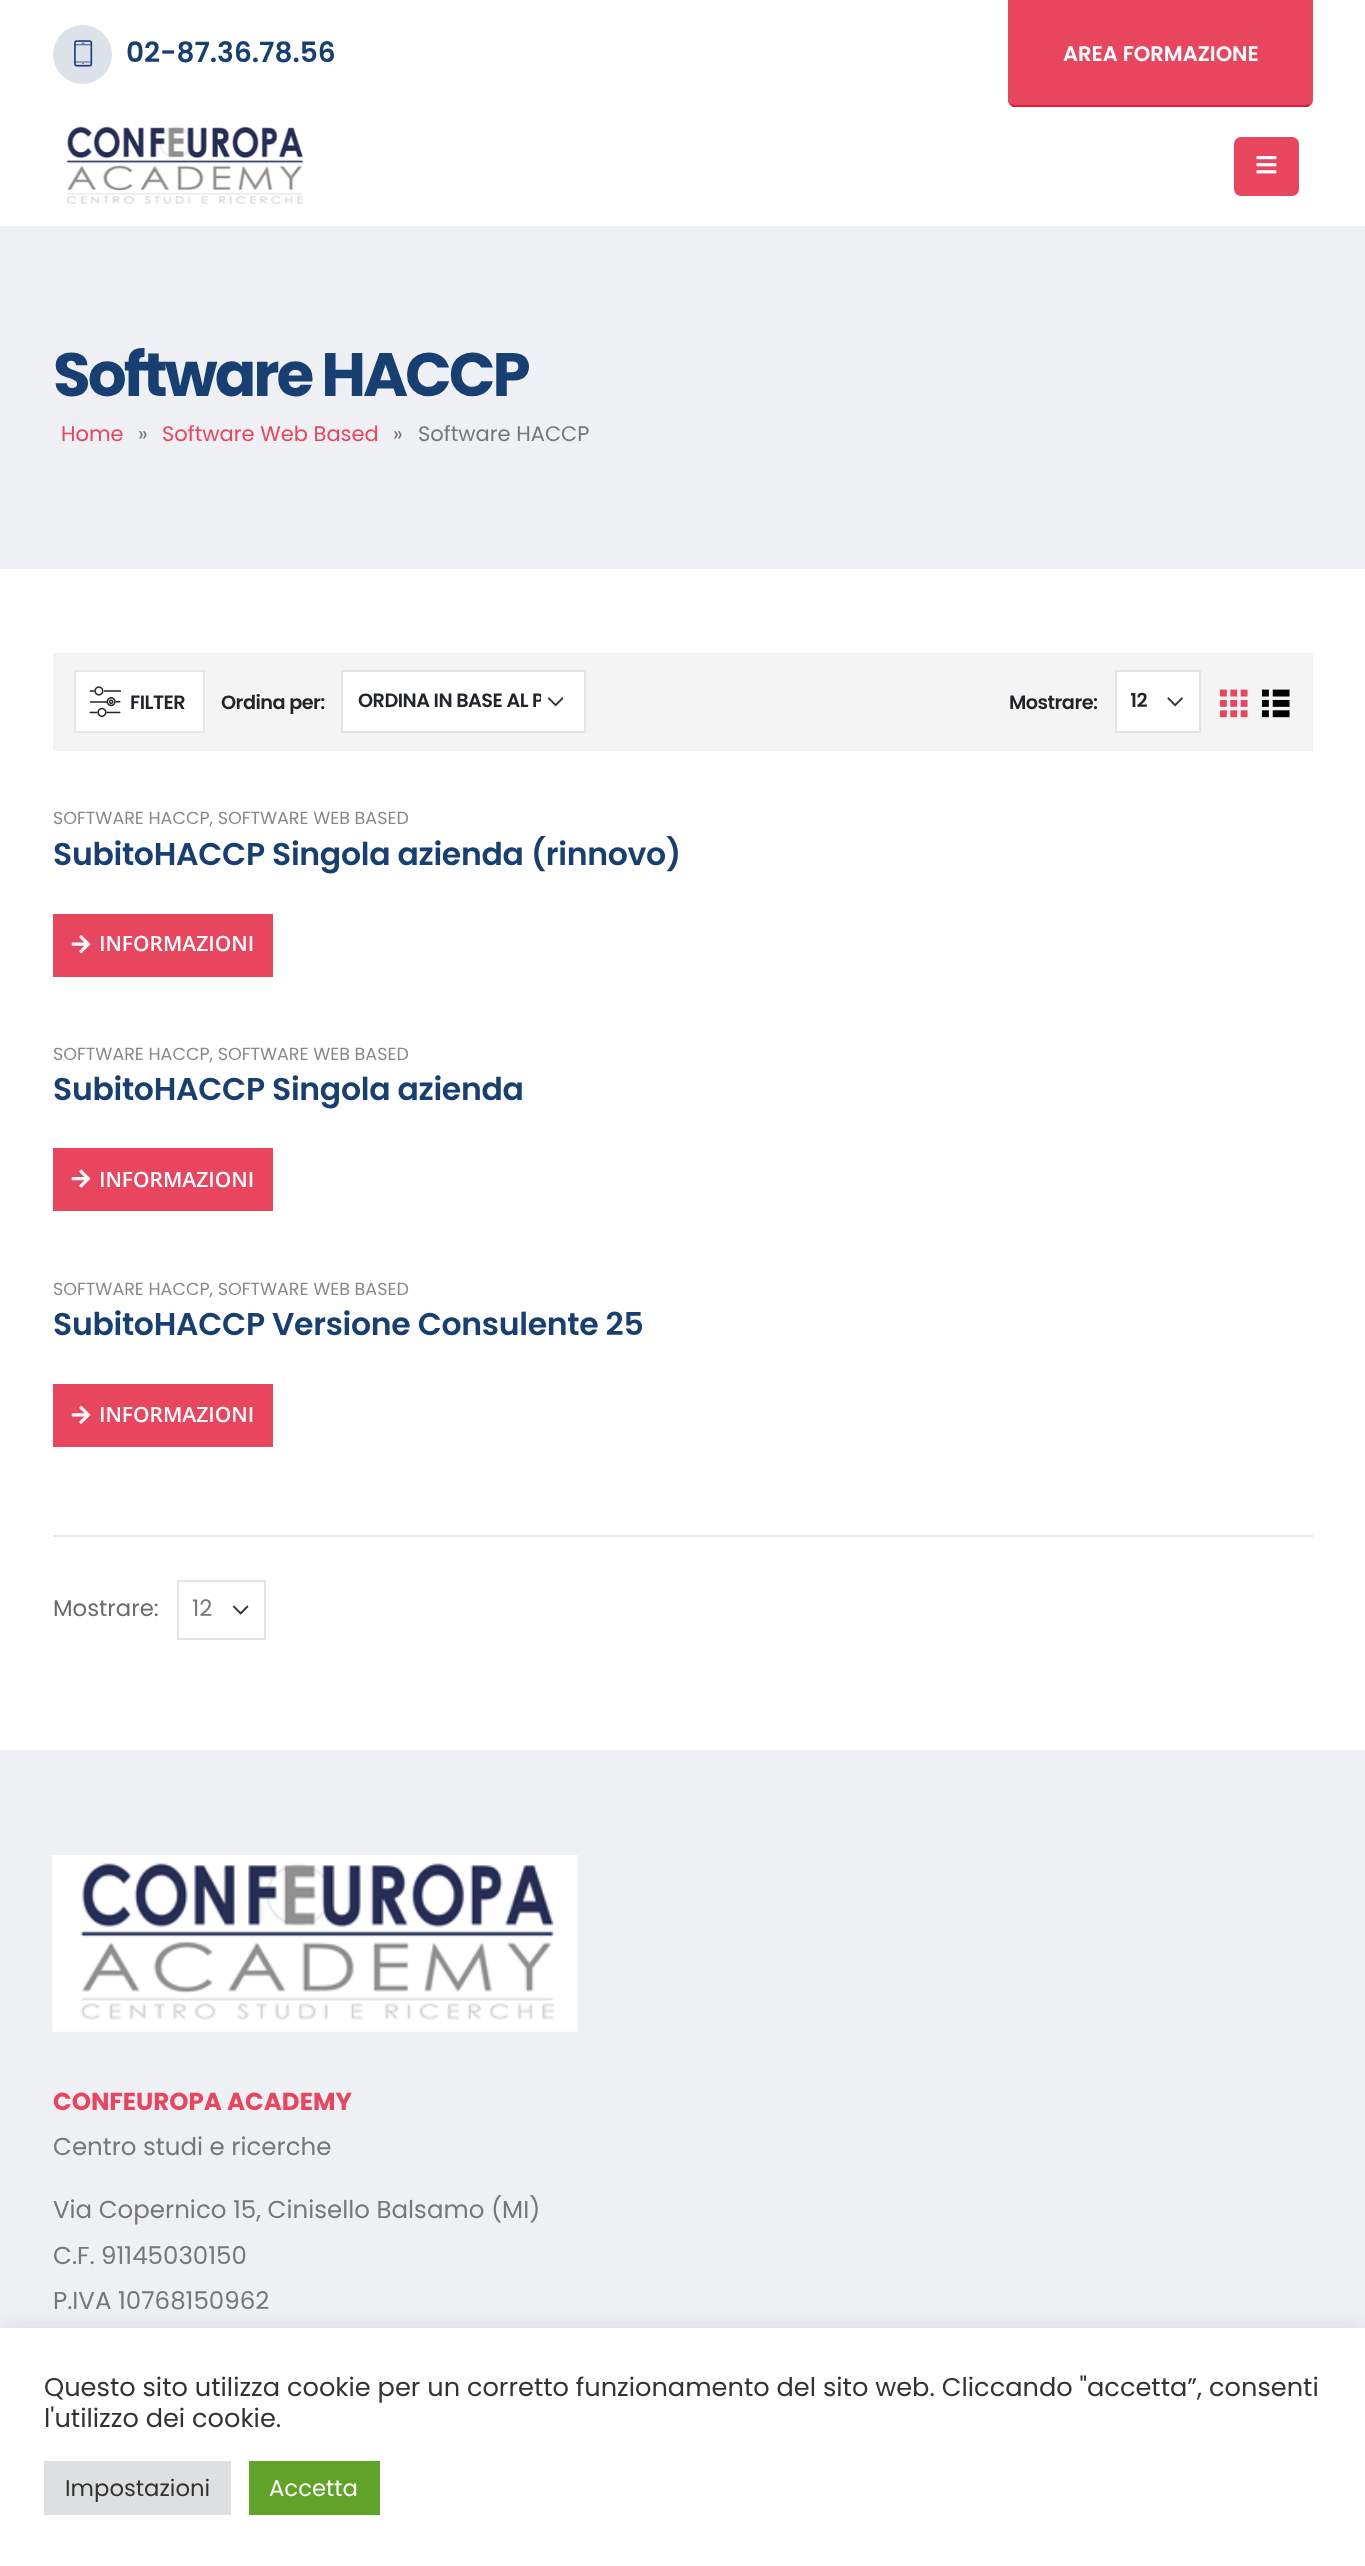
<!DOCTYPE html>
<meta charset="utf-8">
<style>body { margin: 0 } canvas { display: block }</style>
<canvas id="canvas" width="1365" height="2566"></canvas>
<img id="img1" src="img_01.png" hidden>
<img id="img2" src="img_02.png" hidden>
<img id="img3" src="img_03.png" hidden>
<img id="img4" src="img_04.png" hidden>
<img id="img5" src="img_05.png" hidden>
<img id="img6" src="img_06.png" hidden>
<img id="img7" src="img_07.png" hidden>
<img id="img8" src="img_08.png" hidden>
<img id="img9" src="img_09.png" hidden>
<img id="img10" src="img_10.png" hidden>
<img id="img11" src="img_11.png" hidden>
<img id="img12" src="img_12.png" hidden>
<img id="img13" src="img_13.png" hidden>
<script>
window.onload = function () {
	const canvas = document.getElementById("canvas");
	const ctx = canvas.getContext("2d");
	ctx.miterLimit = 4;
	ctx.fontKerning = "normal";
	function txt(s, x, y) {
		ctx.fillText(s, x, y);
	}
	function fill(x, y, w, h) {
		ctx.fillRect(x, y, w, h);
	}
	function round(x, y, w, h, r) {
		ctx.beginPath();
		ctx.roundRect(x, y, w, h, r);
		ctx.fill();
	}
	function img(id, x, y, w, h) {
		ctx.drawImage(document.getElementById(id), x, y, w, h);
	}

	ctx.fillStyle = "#FFFFFF";
	fill(0, 0, 1365, 2566);
	ctx.fillStyle = "#DDE2EA";
	ctx.beginPath();
	ctx.arc(82.5, 54.5, 29.5, 0, Math.PI * 2);
	ctx.fill();
	img("img1", 74, 40, 19, 27);
	ctx.fillStyle = "#E8465F";
	ctx.beginPath();
	ctx.roundRect(1008, 0, 305, 107, [0, 0, 7, 7]);
	ctx.fill();
	ctx.fillStyle = "#E01C3A";
	ctx.beginPath();
	ctx.moveTo(1013, 107);
	ctx.lineTo(1010, 105);
	ctx.lineTo(1011, 103);
	ctx.bezierCurveTo(1012, 105, 1014, 105, 1015, 105);
	ctx.lineTo(1306, 105);
	ctx.lineTo(1309, 104);
	ctx.lineTo(1310, 105);
	ctx.lineTo(1308, 107);
	ctx.closePath();
	ctx.fill();
	ctx.fillStyle = "#E8465F";
	ctx.beginPath();
	ctx.moveTo(1010, 2);
	ctx.lineTo(1008, 0);
	ctx.lineTo(1008, 101);
	ctx.lineTo(1010, 105);
	ctx.lineTo(1011, 103);
	ctx.bezierCurveTo(1010, 103, 1010, 101, 1010, 100);
	ctx.closePath();
	ctx.fill();
	img("img2", 66, 126, 238, 78);
	round(1234, 137, 65, 59, 7);
	img("img3", 1256, 156, 21, 18);
	ctx.fillStyle = "#EEF0F4";
	fill(0, 226, 1365, 343);
	ctx.fillStyle = "#F4F4F4";
	fill(53, 653, 1260, 98);
	ctx.fillStyle = "#FFFFFF";
	ctx.beginPath();
	ctx.rect(75, 671, 129, 61);
	ctx.fill();
	ctx.strokeStyle = "#E7E7E7";
	ctx.lineWidth = 2;
	ctx.stroke();
	img("img4", 89, 686, 32, 31);
	fill(343, 672, 241, 59);
	img("img5", 547, 697, 17, 10);
	ctx.strokeStyle = "#E4E4E4";
	ctx.strokeRect(342, 671, 243, 61);
	fill(1117, 672, 82, 59);
	img("img6", 1167, 697, 16, 10);
	ctx.strokeRect(1116, 671, 84, 61);
	img("img7", 1219, 689, 29, 29);
	img("img8", 1261, 689, 29, 29);
	ctx.fillStyle = "#E8465F";
	fill(53, 914, 220, 63);
	img("img9", 71, 935, 20, 19);
	fill(53, 1148, 220, 63);
	img("img10", 71, 1169, 20, 19);
	fill(53, 1384, 220, 63);
	img("img11", 71, 1405, 20, 19);
	ctx.fillStyle = "#E7E7E7";
	fill(53, 1535, 1260, 2);
	img("img12", 232, 1605, 17, 10);
	ctx.strokeRect(178, 1581, 87, 58);
	ctx.fillStyle = "#EEF0F4";
	fill(0, 1750, 1365, 578);
	img("img13", 52, 1855, 526, 177);
	ctx.fillStyle = "rgba(172, 171, 171, 0.3)";
	ctx.filter = "blur(9px)";
	ctx.beginPath();
	ctx.rect(0, 2326, 1365, 240);
	ctx.fill();
	ctx.filter = "none";
	ctx.fillStyle = "#FFFFFF";
	fill(0, 2328, 1365, 238);
	ctx.fillStyle = "#DEDFE0";
	fill(44, 2461, 187, 54);
	ctx.fillStyle = "#61A229";
	fill(249, 2461, 131, 54);
	ctx.font = "600 28px Poppins";
	ctx.fillStyle = "#183F72";
	txt("02-87.36.78.56", 126, 62);
	ctx.font = "600 21px Poppins";
	ctx.fillStyle = "#FFFFFF";
	txt("AREA FORMAZIONE", 1063, 61);
	ctx.letterSpacing = "-3px";
	ctx.font = "bold 61.25px Poppins";
	ctx.fillStyle = "#183F72";
	txt("Software HACCP", 53, 396);
	ctx.letterSpacing = "0px";
	ctx.font = "21px Poppins";
	ctx.fillStyle = "#E8465F";
	txt("Home", 61, 441);
	ctx.fillStyle = "#777777";
	txt("»", 138, 441);
	ctx.fillStyle = "#E8465F";
	txt("Software Web Based", 162, 441);
	ctx.fillStyle = "#777777";
	txt("»", 393, 441);
	txt("Software HACCP", 418, 441);
	ctx.letterSpacing = "-0.5px";
	ctx.font = "600 19.25px Poppins";
	ctx.fillStyle = "#212529";
	txt("FILTER", 130, 709);
	txt("Ordina per:", 221, 709);
	ctx.save();
	ctx.beginPath();
	ctx.rect(357, 688, 184, 28);
	ctx.clip();
	txt("ORDINA IN BASE AL P", 358, 707);
	ctx.restore();
	txt("Mostrare:", 1009, 709);
	ctx.save();
	ctx.beginPath();
	ctx.rect(1131, 688, 24, 28);
	ctx.clip();
	txt("12", 1130, 707);
	ctx.restore();
	ctx.letterSpacing = "0px";
	ctx.font = "17.5px Poppins";
	ctx.fillStyle = "#898989";
	txt("SOFTWARE HACCP, SOFTWARE WEB BASED", 53, 824);
	ctx.letterSpacing = "-0.3px";
	ctx.font = "600 31.5px Poppins";
	ctx.fillStyle = "#183F72";
	txt("SubitoHACCP Singola azienda (rinnovo)", 53, 865);
	ctx.letterSpacing = "0px";
	ctx.font = "600 21px Open Sans";
	ctx.fillStyle = "#FFFFFF";
	txt("INFORMAZIONI", 99, 951);
	ctx.font = "17.5px Poppins";
	ctx.fillStyle = "#898989";
	txt("SOFTWARE HACCP, SOFTWARE WEB BASED", 53, 1060);
	ctx.letterSpacing = "-0.3px";
	ctx.font = "600 31.5px Poppins";
	ctx.fillStyle = "#183F72";
	txt("SubitoHACCP Singola azienda", 53, 1100);
	ctx.letterSpacing = "0px";
	ctx.font = "600 21px Open Sans";
	ctx.fillStyle = "#FFFFFF";
	txt("INFORMAZIONI", 99, 1187);
	ctx.font = "17.5px Poppins";
	ctx.fillStyle = "#898989";
	txt("SOFTWARE HACCP, SOFTWARE WEB BASED", 53, 1295);
	ctx.letterSpacing = "-0.3px";
	ctx.font = "600 31.5px Poppins";
	ctx.fillStyle = "#183F72";
	txt("SubitoHACCP Versione Consulente 25", 53, 1335);
	ctx.letterSpacing = "0px";
	ctx.font = "600 21px Open Sans";
	ctx.fillStyle = "#FFFFFF";
	txt("INFORMAZIONI", 99, 1422);
	ctx.font = "22.75px Poppins";
	ctx.fillStyle = "#6B6B6B";
	txt("Mostrare:", 53, 1616);
	ctx.fillStyle = "#777777";
	txt("12", 192, 1616);
	ctx.font = "bold 24.5px Poppins";
	ctx.fillStyle = "#E8465F";
	txt("CONFEUROPA ACADEMY", 53, 2110);
	ctx.font = "24.5px Poppins";
	ctx.fillStyle = "#777777";
	txt("Centro studi e ricerche", 53, 2155);
	txt("Via Copernico 15, Cinisello Balsamo (MI)", 53, 2218);
	txt("C.F. 91145030150", 53, 2264);
	txt("P.IVA 10768150962", 53, 2309);
	ctx.font = "25.65px Poppins";
	ctx.fillStyle = "#333333";
	txt("Questo sito utilizza cookie per un corretto funzionamento del sito web. Cliccando \"accetta”, consenti", 44, 2396);
	txt("l'utilizzo dei cookie.", 44, 2427);
	ctx.font = "22.75px Poppins";
	txt("Impostazioni", 65, 2496);
	ctx.fillStyle = "#FFFFFF";
	txt("Accetta", 269, 2496);
};
</script>
